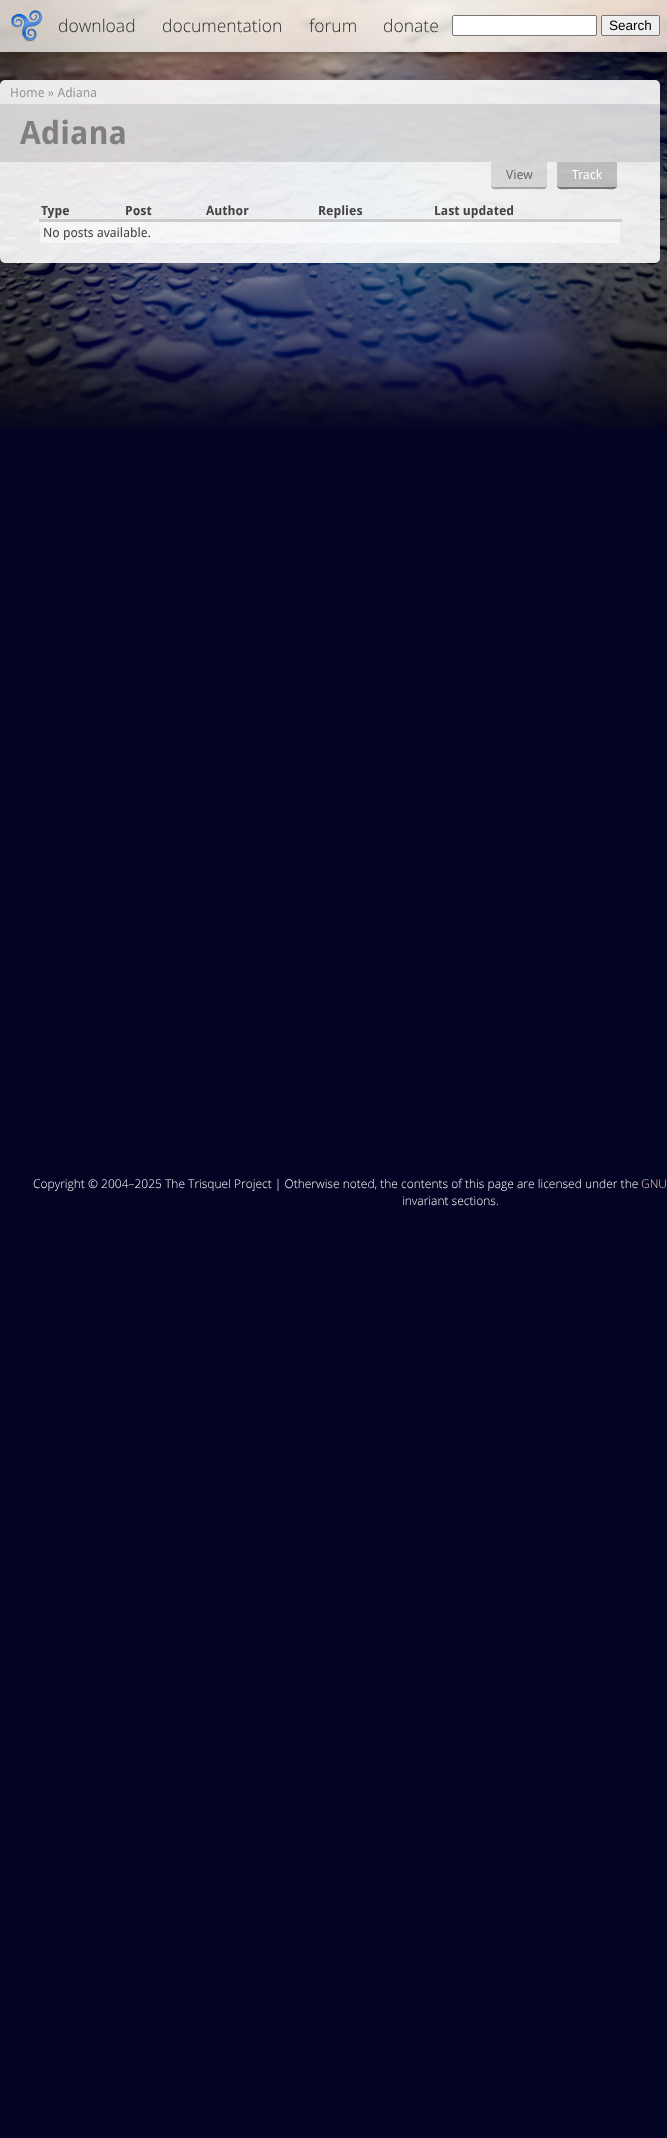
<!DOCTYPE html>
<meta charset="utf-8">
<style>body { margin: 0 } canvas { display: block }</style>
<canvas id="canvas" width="667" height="2138"></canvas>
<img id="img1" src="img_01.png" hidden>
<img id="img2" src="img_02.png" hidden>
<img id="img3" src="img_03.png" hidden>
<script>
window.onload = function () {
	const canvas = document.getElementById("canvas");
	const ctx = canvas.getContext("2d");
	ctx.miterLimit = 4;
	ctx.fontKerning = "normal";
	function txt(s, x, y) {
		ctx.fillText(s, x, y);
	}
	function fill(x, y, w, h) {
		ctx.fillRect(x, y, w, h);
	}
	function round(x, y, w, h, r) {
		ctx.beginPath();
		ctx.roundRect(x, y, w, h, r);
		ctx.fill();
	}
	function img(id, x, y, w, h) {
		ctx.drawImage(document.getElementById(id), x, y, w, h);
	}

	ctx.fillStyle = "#030324";
	fill(0, 0, 667, 2138);
	img("img1", 0, 51, 667, 378);
	ctx.fillStyle = "rgba(0, 0, 0, 0.5)";
	ctx.filter = "blur(7.5px)";
	ctx.beginPath();
	ctx.rect(0, 0, 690, 52);
	ctx.fill();
	ctx.filter = "none";
	img("img2", 0, 0, 667, 52);
	ctx.fillStyle = "rgba(255, 255, 255, 0.7)";
	fill(0, 0, 667, 52);
	img("img3", 11, 10, 32, 32);
	ctx.fillStyle = "#FFFFFF";
	ctx.beginPath();
	ctx.roundRect(452.5, 15.5, 144, 20, 1.5);
	ctx.fill();
	ctx.strokeStyle = "#767676";
	ctx.stroke();
	ctx.fillStyle = "#EFEFEF";
	ctx.beginPath();
	ctx.roundRect(601.5, 15.5, 58, 20, 1.5);
	ctx.fill();
	ctx.stroke();
	ctx.fillStyle = "rgba(255, 255, 255, 0.9)";
	round(0, 80, 660, 183, 5);
	ctx.fillStyle = "rgba(0, 0, 0, 0.1)";
	fill(0, 104, 660, 58);
	ctx.fillStyle = "rgba(0, 0, 0, 0.3)";
	ctx.beginPath();
	ctx.moveTo(491, 184);
	ctx.bezierCurveTo(491, 191, 495, 189, 502, 189);
	ctx.lineTo(536, 189);
	ctx.bezierCurveTo(543, 189, 547, 191, 547, 184);
	ctx.bezierCurveTo(547, 186, 546, 187, 544, 187);
	ctx.lineTo(494, 187);
	ctx.bezierCurveTo(492, 187, 491, 186, 491, 184);
	ctx.closePath();
	ctx.fill();
	ctx.fillStyle = "rgba(0, 0, 0, 0.1)";
	ctx.beginPath();
	ctx.roundRect(491, 162, 56, 25, [0, 0, 3, 3]);
	ctx.fill();
	ctx.fillStyle = "rgba(0, 0, 0, 0.5)";
	ctx.beginPath();
	ctx.moveTo(557, 184);
	ctx.bezierCurveTo(557, 191, 562, 189, 569, 189);
	ctx.lineTo(605, 189);
	ctx.bezierCurveTo(612, 189, 617, 191, 617, 184);
	ctx.bezierCurveTo(617, 186, 616, 187, 614, 187);
	ctx.lineTo(560, 187);
	ctx.bezierCurveTo(558, 187, 557, 186, 557, 184);
	ctx.closePath();
	ctx.fill();
	ctx.fillStyle = "rgba(0, 0, 0, 0.2)";
	ctx.beginPath();
	ctx.roundRect(557, 162, 60, 25, [0, 0, 3, 3]);
	ctx.fill();
	ctx.fillStyle = "#CCCCCC";
	fill(39, 219, 583, 3);
	ctx.fillStyle = "rgba(255, 255, 255, 0.5)";
	fill(40, 222, 580, 21);
	ctx.font = "300 17.5px Open Sans";
	ctx.fillStyle = "#2C2B29";
	txt("download", 58, 32);
	txt("documentation", 162, 32);
	txt("forum", 309, 32);
	txt("donate", 383, 32);
	ctx.font = "13.5px Liberation Sans";
	ctx.fillStyle = "#000000";
	txt("Search", 609, 30);
	ctx.font = "12.75px Droid Sans";
	ctx.fillStyle = "#999999";
	txt("Home » Adiana", 10, 97);
	ctx.font = "bold 32px Droid Sans";
	ctx.fillStyle = "#807E7F";
	txt("Adiana", 20, 144);
	ctx.font = "12.75px Droid Sans";
	ctx.fillStyle = "#6B6B6B";
	txt("View", 506, 179);
	ctx.fillStyle = "#FFFFFF";
	txt("Track", 572, 179);
	ctx.font = "bold 12.75px Droid Sans";
	ctx.fillStyle = "#444444";
	txt("Type", 41, 215);
	txt("Post", 125, 215);
	txt("Author", 206, 215);
	txt("Replies", 318, 215);
	txt("Last updated", 434, 215);
	ctx.font = "12.75px Droid Sans";
	txt("No posts available.", 43, 237);
	ctx.font = "300 12px Open Sans";
	ctx.fillStyle = "#FFFFFF";
	txt("Copyright © 2004–2025 The Trisquel Project | Otherwise noted, the contents of this page are licensed under the", 33, 1188);
	ctx.fillStyle = "#F0D4BB";
	txt("GNU", 641, 1188);
	ctx.fillStyle = "#FFFFFF";
	txt("invariant sections.", 402, 1205);
};
</script>
